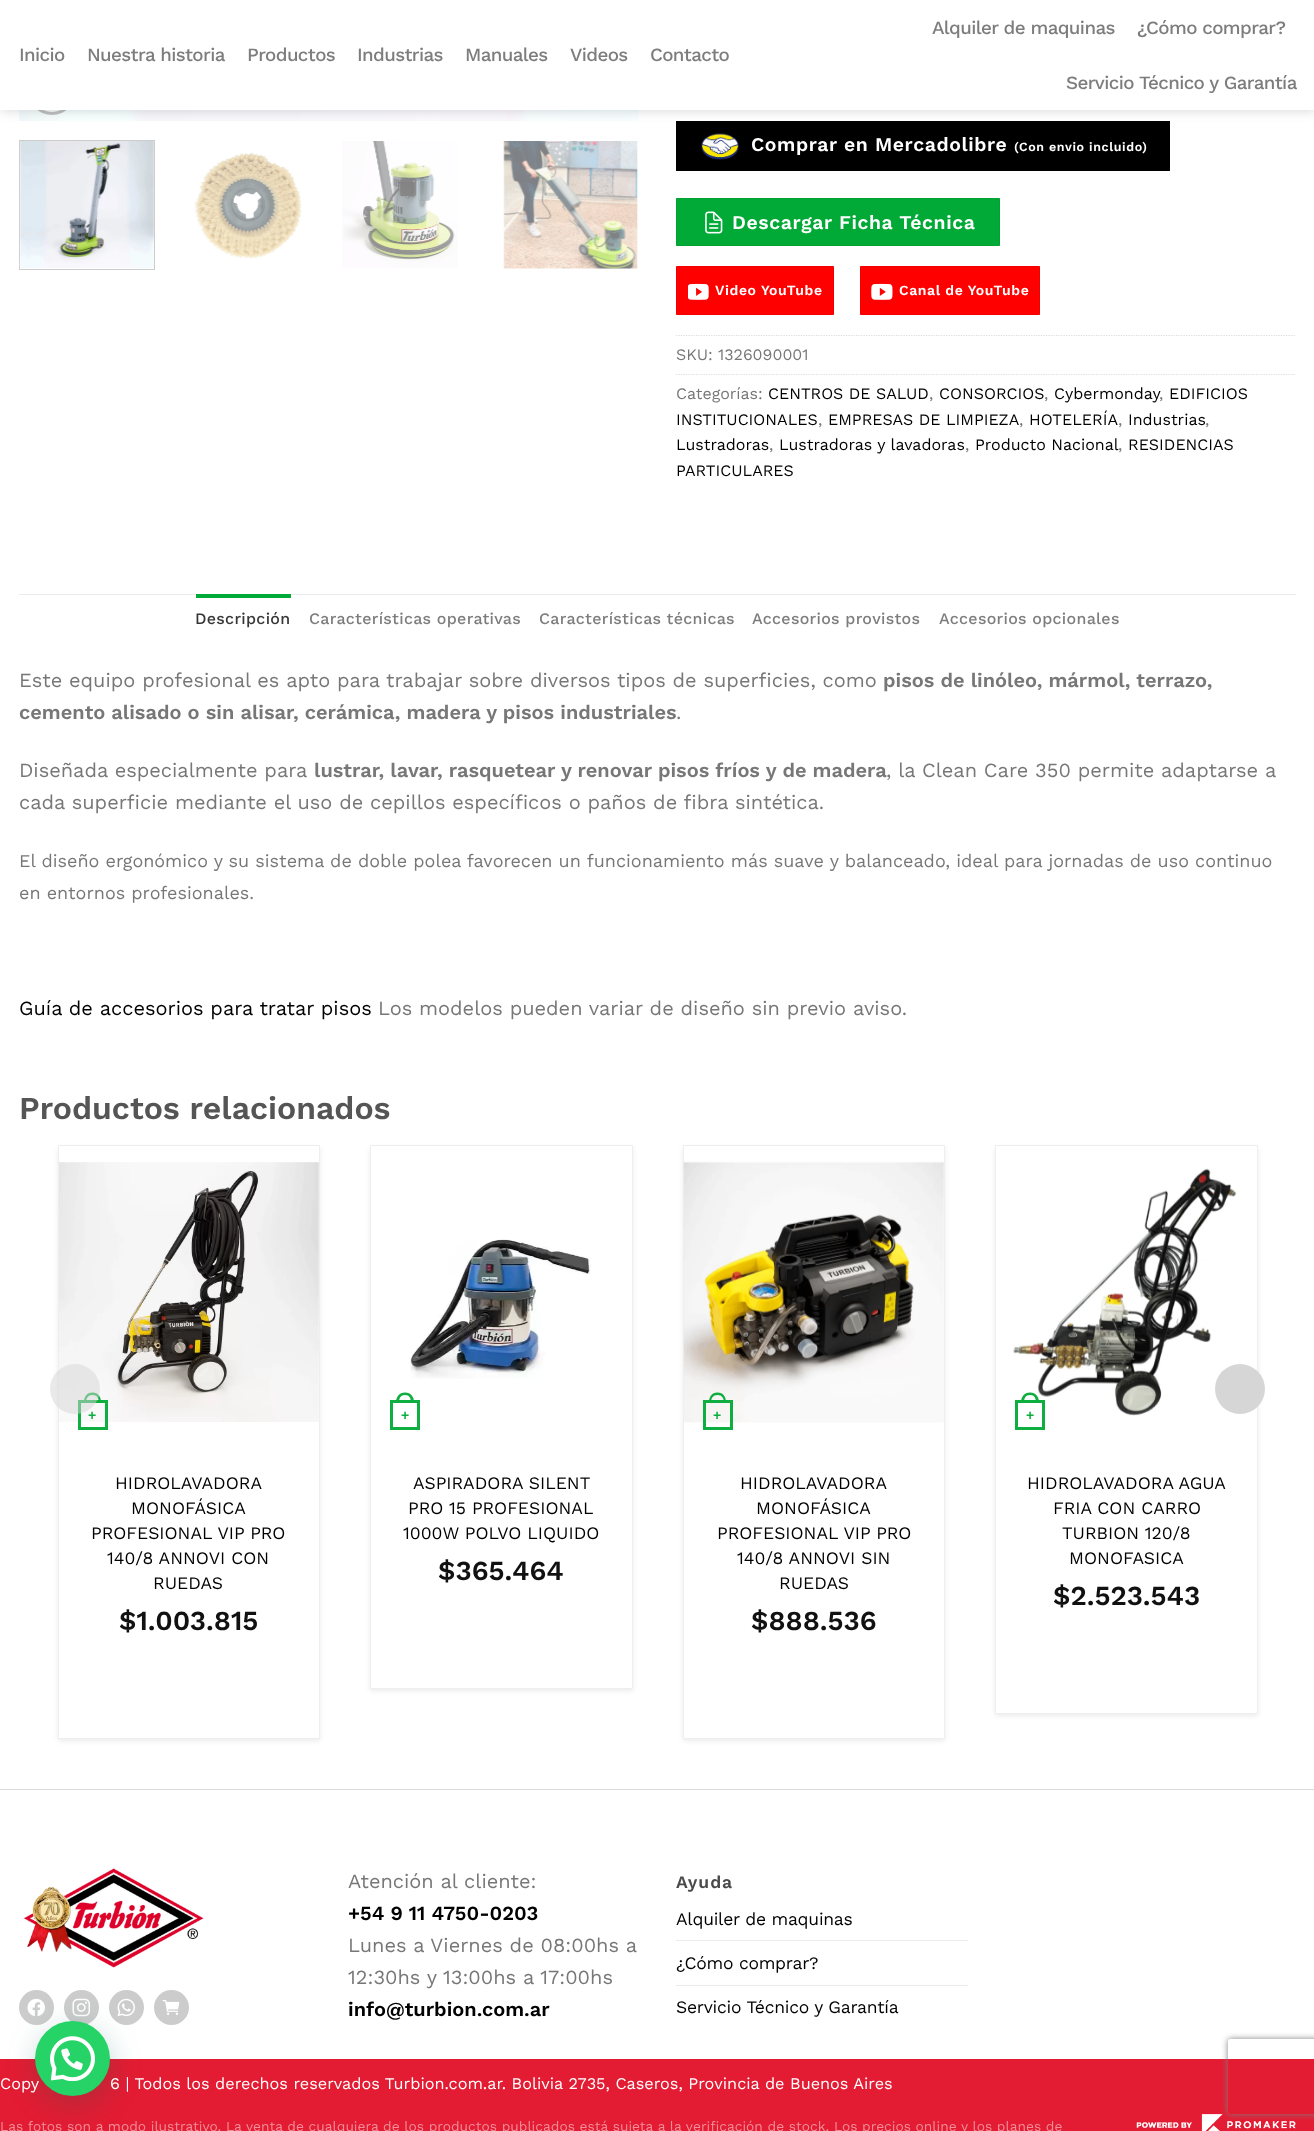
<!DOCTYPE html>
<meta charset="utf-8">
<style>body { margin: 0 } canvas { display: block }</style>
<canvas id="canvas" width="1314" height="2131"></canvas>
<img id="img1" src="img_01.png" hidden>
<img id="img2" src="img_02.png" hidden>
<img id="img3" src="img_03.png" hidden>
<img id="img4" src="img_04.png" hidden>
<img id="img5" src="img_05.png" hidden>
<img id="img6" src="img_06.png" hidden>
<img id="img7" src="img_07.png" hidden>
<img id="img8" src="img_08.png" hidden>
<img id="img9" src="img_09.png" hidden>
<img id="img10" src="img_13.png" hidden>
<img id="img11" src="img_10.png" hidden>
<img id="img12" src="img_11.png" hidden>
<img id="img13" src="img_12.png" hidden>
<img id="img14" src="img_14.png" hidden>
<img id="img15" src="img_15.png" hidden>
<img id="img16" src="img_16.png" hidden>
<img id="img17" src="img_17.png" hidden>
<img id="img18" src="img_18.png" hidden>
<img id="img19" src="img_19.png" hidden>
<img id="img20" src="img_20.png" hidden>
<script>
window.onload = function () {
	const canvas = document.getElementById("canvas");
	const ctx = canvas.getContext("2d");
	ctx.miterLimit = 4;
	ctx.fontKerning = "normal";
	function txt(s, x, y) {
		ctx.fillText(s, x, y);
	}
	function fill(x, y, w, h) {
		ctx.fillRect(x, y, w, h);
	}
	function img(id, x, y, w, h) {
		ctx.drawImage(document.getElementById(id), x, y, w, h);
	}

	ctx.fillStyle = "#E31C33";
	fill(0, 0, 1314, 2131);
	ctx.fillStyle = "#FFFFFF";
	fill(0, 110, 1314, 1679);
	img("img1", 19, 110, 620, 11);
	ctx.beginPath();
	ctx.roundRect(29.5, 67.5, 45, 46, 22.5);
	ctx.strokeStyle = "#C0C0C0";
	ctx.lineWidth = 3;
	ctx.stroke();
	ctx.fillStyle = "#000000";
	fill(676, 121, 494, 50);
	ctx.fillStyle = "rgba(0, 0, 0, 0.15)";
	ctx.filter = "blur(6px)";
	ctx.beginPath();
	ctx.rect(1, 1, 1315, 110);
	ctx.fill();
	ctx.filter = "none";
	ctx.fillStyle = "#FFFFFF";
	fill(0, 0, 1314, 110);
	ctx.strokeStyle = "#CCCCCC";
	ctx.lineWidth = 1;
	ctx.strokeRect(19.5, 140.5, 135, 129);
	img("img2", 19, 141, 135, 127);
	img("img3", 194, 152, 108, 107);
	img("img4", 342, 141, 116, 127);
	img("img5", 503, 141, 135, 128);
	img("img6", 701, 133, 38, 27);
	ctx.fillStyle = "#01AA36";
	ctx.beginPath();
	ctx.rect(676.5, 198.5, 323, 47);
	ctx.fill();
	ctx.strokeStyle = "#01A233";
	ctx.stroke();
	img("img7", 705, 211, 18, 23);
	ctx.fillStyle = "#FF0000";
	ctx.beginPath();
	ctx.rect(676.5, 266.5, 157, 48);
	ctx.fill();
	ctx.strokeStyle = "#F20000";
	ctx.stroke();
	img("img8", 688, 283, 21, 17);
	ctx.beginPath();
	ctx.rect(860.5, 266.5, 179, 48);
	ctx.fill();
	ctx.stroke();
	img("img9", 871, 283, 22, 17);
	ctx.beginPath();
	ctx.moveTo(676, 335.5);
	ctx.lineTo(1296, 335.5);
	ctx.strokeStyle = "#DDDDDD";
	ctx.lineWidth = 1.2;
	ctx.setLineDash([1.25, 1.25]);
	ctx.stroke();
	ctx.beginPath();
	ctx.moveTo(676, 374.5);
	ctx.lineTo(1296, 374.5);
	ctx.stroke();
	ctx.fillStyle = "#ECECEC";
	fill(19, 594, 1277, 1);
	ctx.fillStyle = "#01AA36";
	fill(196, 594, 95, 4);
	ctx.fillStyle = "rgba(0, 0, 0, 0.08)";
	ctx.filter = "blur(2.5px)";
	ctx.beginPath();
	ctx.rect(995, 1148, 263, 568);
	ctx.fill();
	ctx.filter = "none";
	ctx.fillStyle = "#FFFFFF";
	ctx.beginPath();
	ctx.rect(995.5, 1145.5, 262, 568);
	ctx.fill();
	ctx.strokeStyle = "#EEEEEE";
	ctx.lineWidth = 1;
	ctx.setLineDash([]);
	ctx.stroke();
	img("img10", 1013, 1168, 224, 248);
	ctx.fillStyle = "#D6D6D6";
	ctx.beginPath();
	ctx.arc(1240, 1389, 25, 0, Math.PI * 2);
	ctx.fill();
	ctx.fillStyle = "rgba(0, 0, 0, 0.08)";
	ctx.filter = "blur(2.5px)";
	ctx.beginPath();
	ctx.rect(58, 1148, 262, 593);
	ctx.fill();
	ctx.filter = "none";
	ctx.fillStyle = "#FFFFFF";
	ctx.beginPath();
	ctx.rect(58.5, 1145.5, 261, 593);
	ctx.fill();
	ctx.stroke();
	img("img11", 59, 1162, 260, 260);
	ctx.strokeStyle = "rgba(1, 170, 54, 0.95)";
	ctx.lineWidth = 3;
	ctx.strokeRect(79.5, 1401.5, 27, 27);
	ctx.fillStyle = "#0DAE40";
	ctx.beginPath();
	ctx.moveTo(92.5, 1392.5);
	ctx.bezierCurveTo(98.5, 1392.5, 101, 1397, 101, 1402.5);
	ctx.lineTo(84, 1402.5);
	ctx.bezierCurveTo(84, 1397, 86.5, 1392.5, 92.5, 1392.5);
	ctx.closePath();
	ctx.moveTo(92.5, 1395);
	ctx.bezierCurveTo(97, 1395, 99, 1398.5, 99, 1402.5);
	ctx.lineTo(86, 1402.5);
	ctx.bezierCurveTo(86, 1398.5, 88, 1395, 92.5, 1395);
	ctx.closePath();
	ctx.fill("evenodd");
	ctx.fillStyle = "rgba(0, 0, 0, 0.08)";
	ctx.filter = "blur(2.5px)";
	ctx.beginPath();
	ctx.rect(370, 1148, 263, 543);
	ctx.fill();
	ctx.filter = "none";
	ctx.fillStyle = "#FFFFFF";
	ctx.beginPath();
	ctx.rect(370.5, 1145.5, 262, 543);
	ctx.fill();
	ctx.strokeStyle = "#EEEEEE";
	ctx.lineWidth = 1;
	ctx.stroke();
	img("img12", 410, 1239, 181, 140);
	ctx.strokeStyle = "#0EAE40";
	ctx.lineWidth = 3;
	ctx.strokeRect(391.5, 1401.5, 27, 27);
	ctx.fillStyle = "#0EAE40";
	ctx.beginPath();
	ctx.moveTo(405, 1392.5);
	ctx.bezierCurveTo(411, 1392.5, 414, 1397, 414, 1402.5);
	ctx.lineTo(396, 1402.5);
	ctx.bezierCurveTo(396, 1397, 399, 1392.5, 405, 1392.5);
	ctx.closePath();
	ctx.moveTo(405, 1395);
	ctx.bezierCurveTo(409.5, 1395, 411, 1398.5, 411, 1402.5);
	ctx.lineTo(399, 1402.5);
	ctx.bezierCurveTo(399, 1398.5, 400.5, 1395, 405, 1395);
	ctx.closePath();
	ctx.fill("evenodd");
	ctx.fillStyle = "rgba(0, 0, 0, 0.08)";
	ctx.filter = "blur(2.5px)";
	ctx.beginPath();
	ctx.rect(683, 1148, 262, 593);
	ctx.fill();
	ctx.filter = "none";
	ctx.fillStyle = "#FFFFFF";
	ctx.beginPath();
	ctx.rect(683.5, 1145.5, 261, 593);
	ctx.fill();
	ctx.strokeStyle = "#EEEEEE";
	ctx.lineWidth = 1;
	ctx.stroke();
	img("img13", 683, 1161, 261, 262);
	ctx.strokeStyle = "rgba(1, 170, 54, 0.95)";
	ctx.lineWidth = 3;
	ctx.strokeRect(704.5, 1401.5, 27, 27);
	ctx.fillStyle = "#0DAE3F";
	ctx.beginPath();
	ctx.moveTo(717.5, 1392.5);
	ctx.bezierCurveTo(723.5, 1392.5, 726, 1397, 726, 1402.5);
	ctx.lineTo(709, 1402.5);
	ctx.bezierCurveTo(709, 1397, 711.5, 1392.5, 717.5, 1392.5);
	ctx.closePath();
	ctx.moveTo(717.5, 1395);
	ctx.bezierCurveTo(722, 1395, 724, 1398.5, 724, 1402.5);
	ctx.lineTo(711, 1402.5);
	ctx.bezierCurveTo(711, 1398.5, 713, 1395, 717.5, 1395);
	ctx.closePath();
	ctx.fill("evenodd");
	ctx.strokeStyle = "#0EAE40";
	ctx.strokeRect(1016.5, 1401.5, 27, 27);
	ctx.fillStyle = "#0EAE40";
	ctx.beginPath();
	ctx.moveTo(1030, 1392.5);
	ctx.bezierCurveTo(1036, 1392.5, 1039, 1397, 1039, 1402.5);
	ctx.lineTo(1021, 1402.5);
	ctx.bezierCurveTo(1021, 1397, 1024, 1392.5, 1030, 1392.5);
	ctx.closePath();
	ctx.moveTo(1030, 1395);
	ctx.bezierCurveTo(1034.5, 1395, 1036, 1398.5, 1036, 1402.5);
	ctx.lineTo(1024, 1402.5);
	ctx.bezierCurveTo(1024, 1398.5, 1025.5, 1395, 1030, 1395);
	ctx.closePath();
	ctx.fill("evenodd");
	ctx.fillStyle = "#FFFFFF";
	fill(0, 1790, 1314, 269);
	ctx.fillStyle = "#DADADA";
	fill(0, 1789, 1314, 1);
	img("img14", 24, 1868, 180, 100);
	ctx.fillStyle = "#CCCCCC";
	ctx.beginPath();
	ctx.arc(36.5, 2007.5, 17.5, 0, Math.PI * 2);
	ctx.fill();
	img("img15", 27, 1998, 18, 18);
	ctx.beginPath();
	ctx.arc(81.5, 2007.5, 17.5, 0, Math.PI * 2);
	ctx.fill();
	img("img16", 72, 1998, 18, 19);
	ctx.beginPath();
	ctx.arc(126.5, 2007.5, 17.5, 0, Math.PI * 2);
	ctx.fill();
	img("img17", 117, 1998, 18, 19);
	ctx.beginPath();
	ctx.arc(171.5, 2007.5, 17.5, 0, Math.PI * 2);
	ctx.fill();
	img("img18", 162, 2000, 18, 15);
	ctx.fillStyle = "#ECECEC";
	fill(676, 1940, 292, 1);
	fill(676, 1985, 292, 1);
	img("img19", 1136, 2114, 160, 17);
	ctx.fillStyle = "rgba(7, 94, 84, 0.24)";
	ctx.filter = "blur(15px)";
	ctx.beginPath();
	ctx.roundRect(36, 2029, 75, 75, 37.5);
	ctx.fill();
	ctx.filter = "none";
	ctx.save();
	ctx.beginPath();
	ctx.moveTo(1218, 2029);
	ctx.lineTo(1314, 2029);
	ctx.lineTo(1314, 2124);
	ctx.lineTo(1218, 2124);
	ctx.closePath();
	ctx.moveTo(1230.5, 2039);
	ctx.lineTo(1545.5, 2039);
	ctx.bezierCurveTo(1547, 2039, 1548, 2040, 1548, 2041.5);
	ctx.lineTo(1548, 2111.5);
	ctx.bezierCurveTo(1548, 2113, 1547, 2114, 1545.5, 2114);
	ctx.lineTo(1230.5, 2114);
	ctx.bezierCurveTo(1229, 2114, 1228, 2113, 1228, 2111.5);
	ctx.lineTo(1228, 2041.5);
	ctx.bezierCurveTo(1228, 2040, 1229, 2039, 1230.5, 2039);
	ctx.closePath();
	ctx.clip("evenodd");
	ctx.fillStyle = "#808080";
	ctx.filter = "blur(3px)";
	ctx.beginPath();
	ctx.roundRect(1228, 2039, 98, 75, 2.5);
	ctx.fill();
	ctx.filter = "none";
	ctx.restore();
	ctx.letterSpacing = "-0.6px";
	ctx.font = "500 18.75px Work Sans";
	ctx.fillStyle = "#7D7D7D";
	txt("Inicio", 19, 61);
	txt("Nuestra historia", 87, 61);
	txt("Productos", 247, 61);
	txt("Industrias", 357, 61);
	txt("Manuales", 465, 61);
	txt("Videos", 570, 61);
	txt("Contacto", 650, 61);
	txt("Alquiler de maquinas", 932, 34);
	txt("¿Cómo comprar?", 1137, 34);
	txt("Servicio Técnico y Garantía", 1066, 89);
	ctx.letterSpacing = "0.6px";
	ctx.font = "600 19.4px Work Sans";
	ctx.fillStyle = "#FFFFFF";
	txt("Comprar en Mercadolibre", 751, 151);
	ctx.font = "600 12.5px Work Sans";
	txt("(Con envio incluido)", 1014, 151);
	ctx.font = "600 19.4px Work Sans";
	txt("Descargar Ficha Técnica", 732, 229);
	ctx.font = "600 14px Work Sans";
	txt("Video YouTube", 715, 295);
	txt("Canal de YouTube", 899, 295);
	ctx.letterSpacing = "0px";
	ctx.font = "16px Work Sans";
	ctx.fillStyle = "#777777";
	txt("SKU:", 676, 360);
	txt("1326090001", 718, 360);
	txt("Categorías:", 676, 399);
	ctx.fillStyle = "#000000";
	txt("CENTROS DE SALUD", 768, 399);
	ctx.fillStyle = "#777777";
	txt(",", 929, 399);
	ctx.fillStyle = "#000000";
	txt("CONSORCIOS", 939, 399);
	ctx.fillStyle = "#777777";
	txt(",", 1044, 399);
	ctx.fillStyle = "#000000";
	txt("Cybermonday", 1054, 399);
	ctx.fillStyle = "#777777";
	txt(",", 1159, 399);
	ctx.fillStyle = "#000000";
	txt("EDIFICIOS", 1169, 399);
	txt("INSTITUCIONALES", 676, 425);
	ctx.fillStyle = "#777777";
	txt(",", 818, 425);
	ctx.fillStyle = "#000000";
	txt("EMPRESAS DE LIMPIEZA", 828, 425);
	ctx.fillStyle = "#777777";
	txt(",", 1019, 425);
	ctx.fillStyle = "#000000";
	txt("HOTELERÍA", 1029, 425);
	ctx.fillStyle = "#777777";
	txt(",", 1118, 425);
	ctx.fillStyle = "#000000";
	txt("Industrias", 1128, 425);
	ctx.fillStyle = "#777777";
	txt(",", 1205, 425);
	ctx.fillStyle = "#000000";
	txt("Lustradoras", 676, 450);
	ctx.fillStyle = "#777777";
	txt(",", 769, 450);
	ctx.fillStyle = "#000000";
	txt("Lustradoras y lavadoras", 779, 450);
	ctx.fillStyle = "#777777";
	txt(",", 965, 450);
	ctx.fillStyle = "#000000";
	txt("Producto Nacional", 975, 450);
	ctx.fillStyle = "#777777";
	txt(",", 1118, 450);
	ctx.fillStyle = "#000000";
	txt("RESIDENCIAS", 1128, 450);
	txt("PARTICULARES", 676, 476);
	ctx.letterSpacing = "0.3px";
	ctx.font = "500 16px Work Sans";
	ctx.fillStyle = "#363636";
	txt("Descripción", 195, 624);
	ctx.fillStyle = "#7D7D7D";
	txt("Características operativas", 309, 624);
	txt("Características técnicas", 539, 624);
	txt("Accesorios provistos", 752, 624);
	txt("Accesorios opcionales", 939, 624);
	ctx.letterSpacing = "0px";
	ctx.font = "20px Work Sans";
	ctx.fillStyle = "#777777";
	txt("Este equipo profesional es apto para trabajar sobre diversos tipos de superficies, como", 19, 687);
	ctx.font = "600 20px Work Sans";
	txt("pisos de linóleo, mármol, terrazo,", 883, 687);
	txt("cemento alisado o sin alisar, cerámica, madera y pisos industriales", 19, 719);
	ctx.font = "20px Work Sans";
	txt(".", 676, 719);
	txt("Diseñada especialmente para", 19, 777);
	ctx.font = "600 20px Work Sans";
	txt("lustrar, lavar, rasquetear y renovar pisos fríos y de madera", 314, 777);
	ctx.font = "20px Work Sans";
	txt(", la Clean Care 350 permite adaptarse a", 886, 777);
	txt("cada superficie mediante el uso de cepillos específicos o paños de fibra sintética.", 19, 809);
	ctx.font = "18px Work Sans";
	txt("El diseño ergonómico y su sistema de doble polea favorecen un funcionamiento más suave y balanceado, ideal para jornadas de uso continuo", 19, 867);
	txt("en entornos profesionales.", 19, 899);
	ctx.font = "20px Work Sans";
	ctx.fillStyle = "#000000";
	txt("Guía de accesorios para tratar pisos", 19, 1015);
	ctx.fillStyle = "#777777";
	txt("Los modelos pueden variar de diseño sin previo aviso.", 378, 1015);
	ctx.font = "600 32px Work Sans";
	ctx.fillStyle = "#555555";
	txt("Productos relacionados", 19, 1119);
	ctx.font = "bold 14px Liberation Sans";
	ctx.fillStyle = "#0DAE40";
	txt("+", 88, 1420);
	ctx.fillStyle = "rgba(214, 214, 214, 0.5)";
	ctx.beginPath();
	ctx.arc(75, 1389, 25, 0, Math.PI * 2);
	ctx.fill();
	ctx.font = "17.5px Work Sans";
	ctx.fillStyle = "#000000";
	txt("HIDROLAVADORA", 115, 1489);
	txt("MONOFÁSICA", 131, 1514);
	txt("PROFESIONAL VIP PRO", 91, 1539);
	txt("140/8 ANNOVI CON", 107, 1564);
	txt("RUEDAS", 153, 1589);
	ctx.font = "600 27.5px Work Sans";
	ctx.fillStyle = "#111111";
	txt("$1.003.815", 119, 1630);
	ctx.font = "bold 14px Liberation Sans";
	ctx.fillStyle = "#0DAE40";
	txt("+", 401, 1420);
	ctx.font = "17.5px Work Sans";
	ctx.fillStyle = "#000000";
	txt("ASPIRADORA SILENT", 413, 1489);
	txt("PRO 15 PROFESIONAL", 408, 1514);
	txt("1000W POLVO LIQUIDO", 403, 1539);
	ctx.font = "600 27.5px Work Sans";
	ctx.fillStyle = "#111111";
	txt("$365.464", 438, 1580);
	ctx.font = "bold 14px Liberation Sans";
	ctx.fillStyle = "#0DAE40";
	txt("+", 713, 1420);
	ctx.font = "17.5px Work Sans";
	ctx.fillStyle = "#000000";
	txt("HIDROLAVADORA", 740, 1489);
	txt("MONOFÁSICA", 756, 1514);
	txt("PROFESIONAL VIP PRO", 717, 1539);
	txt("140/8 ANNOVI SIN", 737, 1564);
	txt("RUEDAS", 779, 1589);
	ctx.font = "600 27.5px Work Sans";
	ctx.fillStyle = "#111111";
	txt("$888.536", 751, 1630);
	ctx.font = "bold 14px Liberation Sans";
	ctx.fillStyle = "#0DAE40";
	txt("+", 1026, 1420);
	ctx.font = "17.5px Work Sans";
	ctx.fillStyle = "#000000";
	txt("HIDROLAVADORA AGUA", 1027, 1489);
	txt("FRIA CON CARRO", 1053, 1514);
	txt("TURBION 120/8", 1062, 1539);
	txt("MONOFASICA", 1069, 1564);
	ctx.font = "600 27.5px Work Sans";
	ctx.fillStyle = "#111111";
	txt("$2.523.543", 1053, 1605);
	ctx.font = "20px Work Sans";
	ctx.fillStyle = "#777777";
	txt("Atención al cliente:", 348, 1888);
	ctx.font = "600 20px Work Sans";
	ctx.fillStyle = "#000000";
	txt("+54 9 11 4750-0203", 348, 1920);
	ctx.font = "20px Work Sans";
	ctx.fillStyle = "#777777";
	txt("Lunes a Viernes de 08:00hs a", 348, 1952);
	txt("12:30hs y 13:00hs a 17:00hs", 348, 1984);
	ctx.font = "600 20px Work Sans";
	ctx.fillStyle = "#000000";
	txt("info@turbion.com.ar", 348, 2016);
	ctx.letterSpacing = "1px";
	ctx.font = "600 17.5px Work Sans";
	ctx.fillStyle = "#4A4A4A";
	txt("Ayuda", 676, 1888);
	ctx.letterSpacing = "-0.25px";
	ctx.font = "17.5px Work Sans";
	ctx.fillStyle = "#000000";
	txt("Alquiler de maquinas", 676, 1925);
	txt("¿Cómo comprar?", 676, 1969);
	txt("Servicio Técnico y Garantía", 676, 2013);
	ctx.letterSpacing = "0px";
	ctx.font = "16.25px Work Sans";
	ctx.fillStyle = "#FFFFFF";
	txt("Copy", 0, 2089);
	txt("6 | Todos los derechos reservados Turbion.com.ar. Bolivia 2735, Caseros, Provincia de Buenos Aires", 110, 2089);
	ctx.font = "13.75px Work Sans";
	ctx.fillStyle = "#F18E99";
	txt("Las fotos son a modo ilustrativo. La venta de cualquiera de los productos publicados está sujeta a la verificación de stock. Los precios online y los planes de", 0, 2131);
	ctx.fillStyle = "#25D366";
	ctx.beginPath();
	ctx.arc(72.5, 2058.5, 37.5, 0, Math.PI * 2);
	ctx.fill();
	img("img20", 50, 2036, 45, 45);
};
</script>
